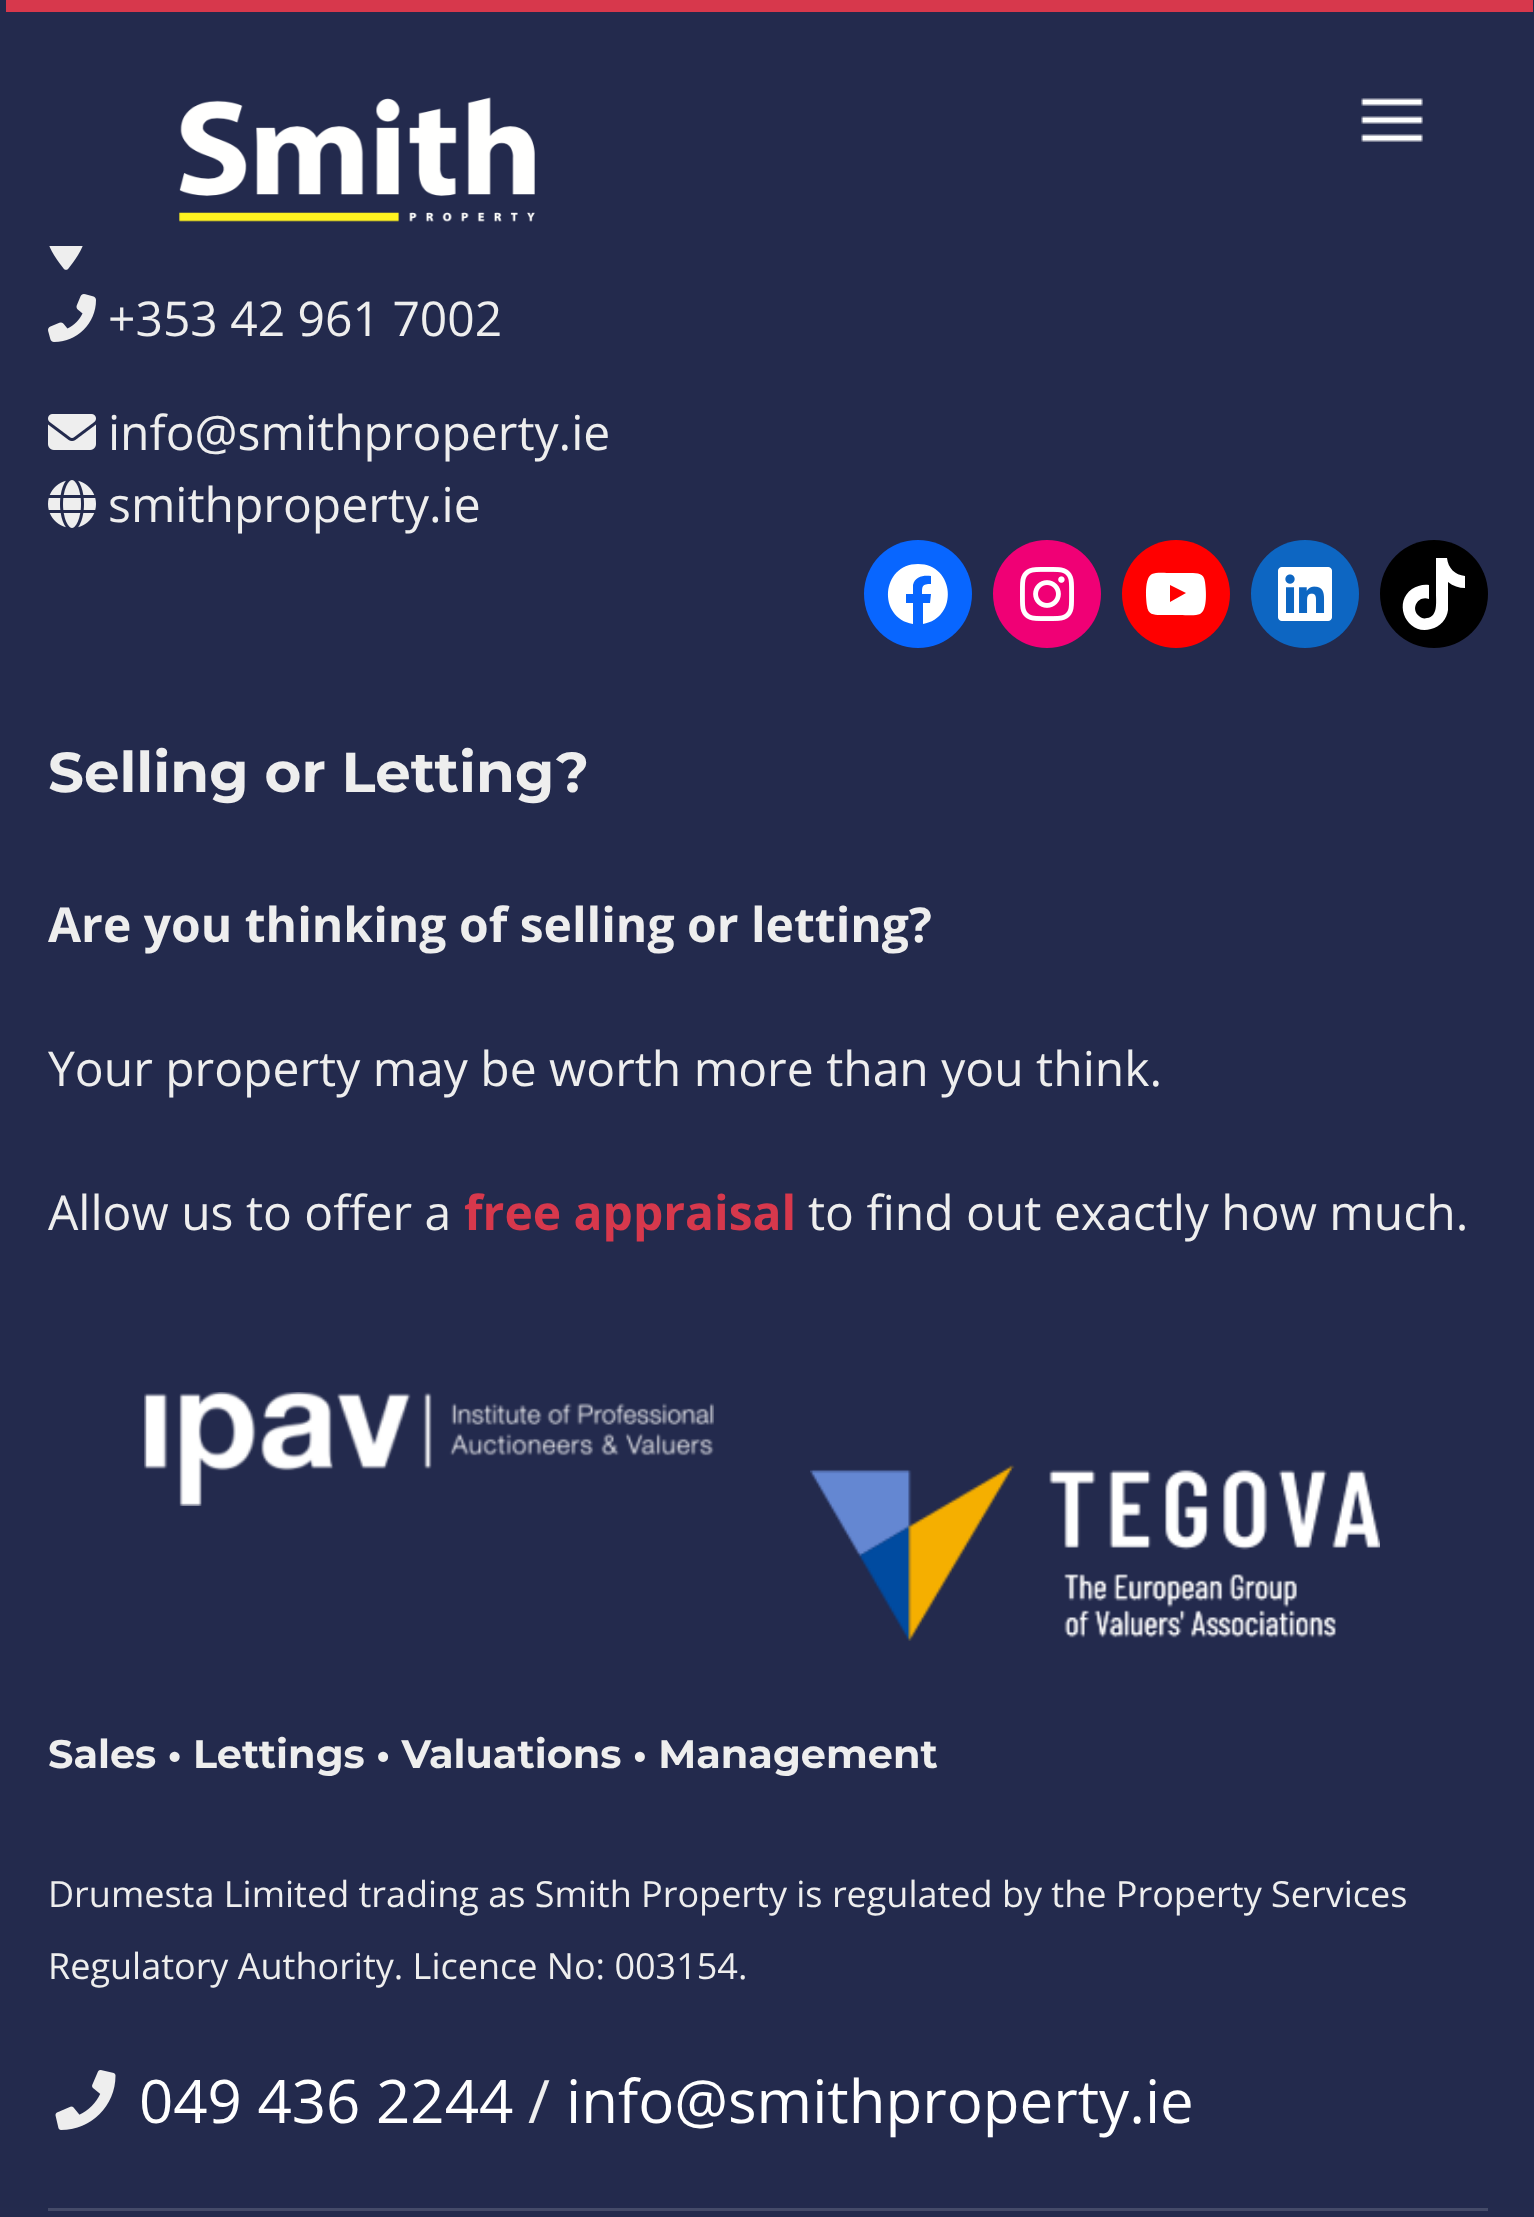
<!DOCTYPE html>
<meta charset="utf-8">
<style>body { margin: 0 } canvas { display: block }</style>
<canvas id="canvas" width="1534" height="2217"></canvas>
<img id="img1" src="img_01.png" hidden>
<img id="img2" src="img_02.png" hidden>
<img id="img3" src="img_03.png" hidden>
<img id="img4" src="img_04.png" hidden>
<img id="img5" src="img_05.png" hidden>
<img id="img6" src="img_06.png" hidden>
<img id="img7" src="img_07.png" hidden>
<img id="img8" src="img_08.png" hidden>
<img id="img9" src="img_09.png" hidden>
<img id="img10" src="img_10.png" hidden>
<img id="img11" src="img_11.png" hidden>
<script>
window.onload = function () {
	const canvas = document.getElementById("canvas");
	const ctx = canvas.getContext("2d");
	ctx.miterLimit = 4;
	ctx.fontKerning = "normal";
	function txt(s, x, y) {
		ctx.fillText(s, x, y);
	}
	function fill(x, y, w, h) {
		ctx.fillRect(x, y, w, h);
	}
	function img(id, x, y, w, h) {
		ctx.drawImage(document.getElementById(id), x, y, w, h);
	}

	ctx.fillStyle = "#232A4D";
	fill(0, 0, 1534, 2217);
	ctx.fillStyle = "#D7384C";
	fill(6, 0, 1527, 12);
	img("img1", 179, 97, 356, 125);
	img("img2", 1361, 98, 62, 44);
	img("img3", 49, 246, 34, 24);
	img("img4", 48, 294, 48, 48);
	img("img5", 48, 414, 48, 36);
	img("img6", 48, 480, 48, 48);
	ctx.fillStyle = "#0866FF";
	ctx.beginPath();
	ctx.arc(918, 594, 54, 0, Math.PI * 2);
	ctx.fill();
	ctx.fillStyle = "#FFFFFF";
	ctx.beginPath();
	ctx.moveTo(918, 564);
	ctx.bezierCurveTo(881, 564, 877, 618, 913, 624);
	ctx.lineTo(913, 603);
	ctx.lineTo(906, 603);
	ctx.lineTo(906, 594);
	ctx.lineTo(913, 594);
	ctx.lineTo(913, 585);
	ctx.bezierCurveTo(915, 576, 924, 575, 931, 576);
	ctx.lineTo(931, 584);
	ctx.bezierCurveTo(922, 584, 922, 586, 922, 594);
	ctx.lineTo(931, 594);
	ctx.lineTo(930, 603);
	ctx.lineTo(923, 603);
	ctx.lineTo(923, 624);
	ctx.bezierCurveTo(959, 618, 955, 564, 918, 564);
	ctx.closePath();
	ctx.fill();
	ctx.fillStyle = "#F00075";
	ctx.beginPath();
	ctx.arc(1047, 594, 54, 0, Math.PI * 2);
	ctx.fill();
	img("img7", 1020, 567, 54, 54);
	ctx.fillStyle = "#FF0000";
	ctx.beginPath();
	ctx.arc(1176, 594, 54, 0, Math.PI * 2);
	ctx.fill();
	ctx.fillStyle = "#FFFFFF";
	ctx.beginPath();
	ctx.moveTo(1205, 582);
	ctx.bezierCurveTo(1204, 573, 1198, 573, 1190, 573);
	ctx.lineTo(1172, 573);
	ctx.bezierCurveTo(1166, 573, 1156, 572, 1152, 574);
	ctx.bezierCurveTo(1144, 578, 1146, 599, 1147, 606);
	ctx.bezierCurveTo(1148, 616, 1156, 615, 1164, 615);
	ctx.lineTo(1180, 615);
	ctx.bezierCurveTo(1186, 615, 1196, 616, 1200, 614);
	ctx.bezierCurveTo(1208, 610, 1206, 589, 1205, 582);
	ctx.closePath();
	ctx.moveTo(1170, 602);
	ctx.lineTo(1170, 585);
	ctx.lineTo(1186, 593);
	ctx.closePath();
	ctx.fill();
	ctx.fillStyle = "#0D66C2";
	ctx.beginPath();
	ctx.arc(1305, 594, 54, 0, Math.PI * 2);
	ctx.fill();
	img("img8", 1278, 567, 54, 54);
	ctx.fillStyle = "#000000";
	ctx.beginPath();
	ctx.arc(1434, 594, 54, 0, Math.PI * 2);
	ctx.fill();
	ctx.fillStyle = "#FFFFFF";
	ctx.beginPath();
	ctx.moveTo(1436, 558);
	ctx.lineTo(1447, 558);
	ctx.bezierCurveTo(1448, 568, 1455, 575, 1465, 576);
	ctx.lineTo(1465, 588);
	ctx.bezierCurveTo(1459, 588, 1453, 586, 1448, 582);
	ctx.lineTo(1448, 610);
	ctx.bezierCurveTo(1447, 619, 1440, 627, 1431, 629);
	ctx.bezierCurveTo(1407, 636, 1392, 603, 1412, 589);
	ctx.bezierCurveTo(1417, 586, 1423, 584, 1429, 585);
	ctx.lineTo(1429, 599);
	ctx.bezierCurveTo(1418, 595, 1410, 609, 1419, 616);
	ctx.bezierCurveTo(1421, 618, 1424, 619, 1427, 618);
	ctx.bezierCurveTo(1438, 617, 1436, 602, 1436, 594);
	ctx.closePath();
	ctx.fill();
	img("img9", 144, 1392, 570, 114);
	img("img10", 810, 1464, 570, 177);
	img("img11", 55, 2070, 61, 60);
	ctx.fillStyle = "#444A68";
	fill(48, 2208, 1440, 3);
	ctx.font = "48px Open Sans";
	ctx.fillStyle = "#EEEEEE";
	txt("+353 42 961 7002", 108, 336);
	txt("info@smithproperty.ie", 108, 450);
	txt("smithproperty.ie", 108, 522);
	ctx.font = "bold 56.25px Montserrat";
	txt("Selling or Letting?", 48, 792);
	ctx.font = "bold 48px Open Sans";
	txt("Are you thinking of selling or letting?", 48, 942);
	ctx.font = "48px Open Sans";
	txt("Your property may be worth more than you think.", 48, 1086);
	txt("Allow us to offer a", 48, 1230);
	ctx.font = "bold 48px Open Sans";
	ctx.fillStyle = "#D7384C";
	txt("free appraisal", 464, 1230);
	ctx.font = "48px Open Sans";
	ctx.fillStyle = "#EEEEEE";
	txt("to find out exactly how much.", 808, 1230);
	ctx.font = "bold 39.8px Montserrat";
	txt("Sales • Lettings • Valuations • Management", 48, 1768);
	ctx.font = "36px Open Sans";
	txt("Drumesta Limited trading as Smith Property is regulated by the Property Services", 48, 1907);
	txt("Regulatory Authority. Licence No: 003154.", 48, 1979);
	ctx.font = "60px Open Sans";
	ctx.fillStyle = "#FFFFFF";
	txt("049 436 2244", 139, 2123);
	ctx.fillStyle = "#EEEEEE";
	txt("/", 528, 2123);
	ctx.fillStyle = "#FFFFFF";
	txt("info@smithproperty.ie", 566, 2123);
};
</script>
